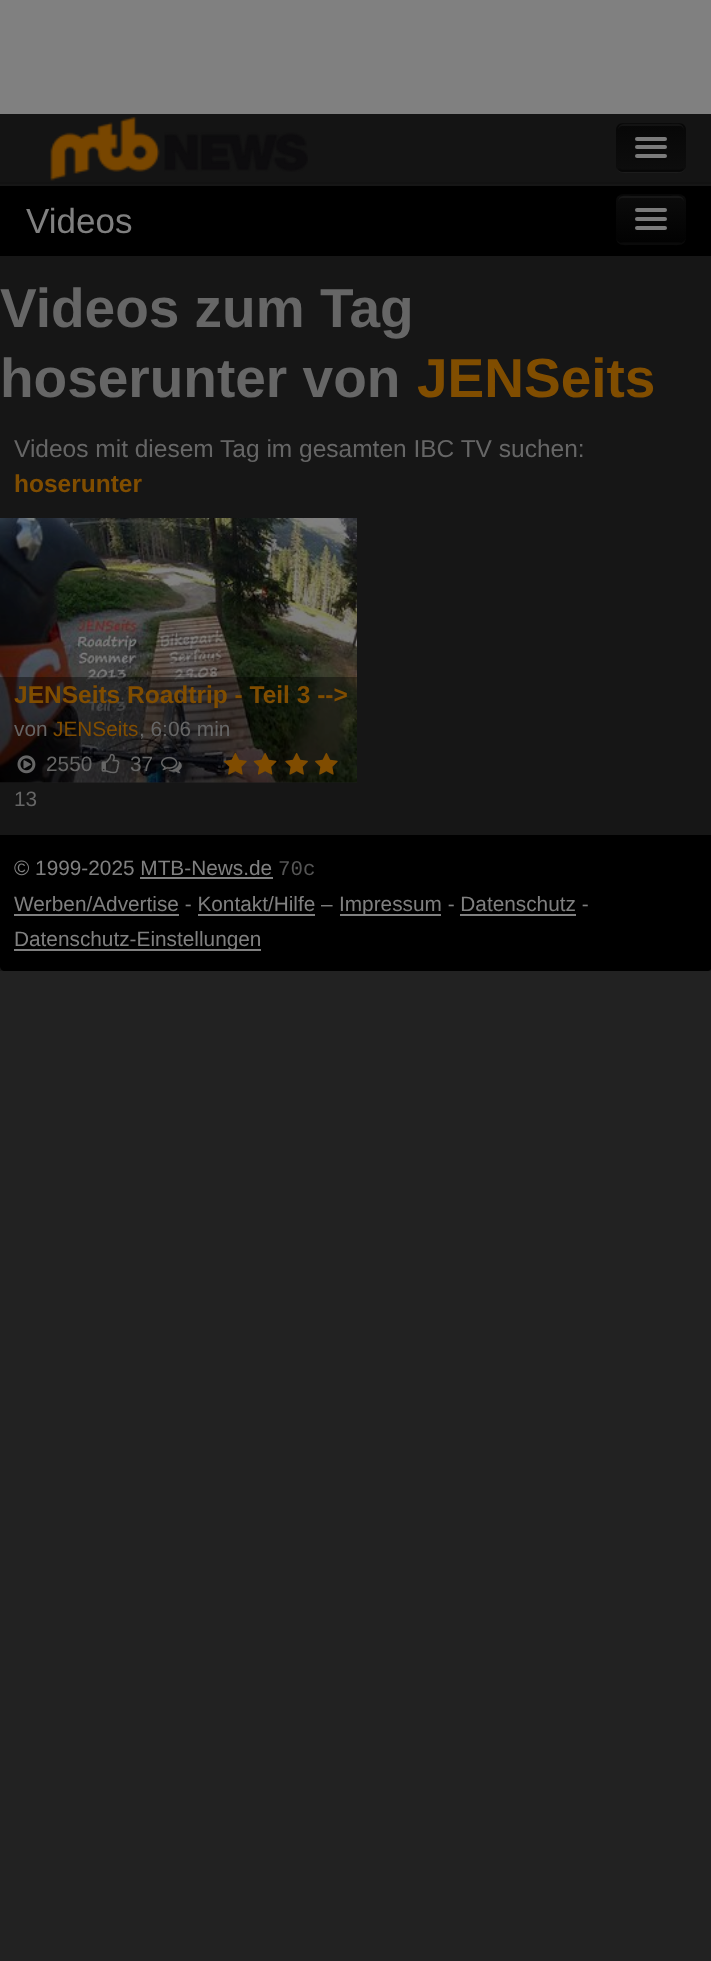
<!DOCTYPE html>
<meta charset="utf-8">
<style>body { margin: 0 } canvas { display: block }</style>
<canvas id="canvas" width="711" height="1961"></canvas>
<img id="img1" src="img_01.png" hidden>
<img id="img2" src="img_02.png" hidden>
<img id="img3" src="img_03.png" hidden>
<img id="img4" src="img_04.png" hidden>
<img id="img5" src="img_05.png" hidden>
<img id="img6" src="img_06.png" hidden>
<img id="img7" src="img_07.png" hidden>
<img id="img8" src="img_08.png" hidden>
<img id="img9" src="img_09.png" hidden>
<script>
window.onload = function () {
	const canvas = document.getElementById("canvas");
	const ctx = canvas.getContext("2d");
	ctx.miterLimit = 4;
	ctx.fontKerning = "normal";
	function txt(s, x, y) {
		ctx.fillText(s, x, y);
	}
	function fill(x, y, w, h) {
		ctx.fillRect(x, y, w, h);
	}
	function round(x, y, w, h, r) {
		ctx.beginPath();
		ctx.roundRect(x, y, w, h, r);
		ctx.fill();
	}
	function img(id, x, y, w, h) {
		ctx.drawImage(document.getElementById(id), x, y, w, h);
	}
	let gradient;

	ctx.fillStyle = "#222222";
	fill(0, 0, 711, 1961);
	ctx.fillStyle = "#808080";
	fill(0, 0, 711, 114);
	ctx.fillStyle = "#141414";
	fill(0, 114, 711, 68);
	ctx.fillStyle = "#121212";
	fill(0, 182, 711, 2);
	img("img1", 50, 116, 258, 65);
	ctx.fillStyle = "#1C1C1C";
	ctx.beginPath();
	ctx.moveTo(616, 164);
	ctx.bezierCurveTo(616, 175, 624, 173, 632, 173);
	ctx.lineTo(670, 173);
	ctx.bezierCurveTo(678, 173, 686, 175, 686, 164);
	ctx.bezierCurveTo(686, 168, 683, 172, 679, 172);
	ctx.lineTo(623, 172);
	ctx.bezierCurveTo(619, 172, 616, 168, 616, 164);
	ctx.closePath();
	ctx.fill();
	ctx.fillStyle = "#0A0A0A";
	round(616, 123, 70, 49, 7);
	ctx.save();
	ctx.beginPath();
	ctx.roundRect(616, 123, 70, 49, 7);
	ctx.clip();
	gradient = ctx.createLinearGradient(651, 124, 651, 170);
	gradient.addColorStop(0, "#070707");
	gradient.addColorStop(1, "#0D0D0D");
	ctx.fillStyle = gradient;
	fill(616, 124, 70, 46);
	ctx.restore();
	ctx.fillStyle = "#131313";
	ctx.beginPath();
	ctx.moveTo(623, 126);
	ctx.lineTo(679, 126);
	ctx.bezierCurveTo(682, 126, 684, 128, 684, 131);
	ctx.bezierCurveTo(684, 122, 677, 124, 670, 124);
	ctx.lineTo(632, 124);
	ctx.bezierCurveTo(625, 124, 618, 122, 618, 131);
	ctx.bezierCurveTo(618, 128, 620, 126, 623, 126);
	ctx.closePath();
	ctx.fill();
	ctx.beginPath();
	ctx.moveTo(683.5, 169);
	ctx.bezierCurveTo(682, 170, 680.5, 170.5, 679, 170.5);
	ctx.lineTo(623, 170.5);
	ctx.bezierCurveTo(621.5, 170.5, 620, 170, 618.5, 169);
	ctx.strokeStyle = "rgba(0, 0, 0, 0.25)";
	ctx.lineWidth = 1.8;
	ctx.stroke();
	ctx.fillStyle = "#7B7B7B";
	round(635, 137, 32, 4, 2);
	round(635, 145, 32, 4, 2);
	ctx.fillStyle = "#090909";
	ctx.beginPath();
	ctx.moveTo(635.5, 156.5);
	ctx.bezierCurveTo(634.5, 158, 635, 159.5, 636.5, 160);
	ctx.lineTo(665.5, 160);
	ctx.bezierCurveTo(667, 159.5, 667.5, 158, 666.5, 156.5);
	ctx.lineTo(665, 157.5);
	ctx.lineTo(637, 157.5);
	ctx.closePath();
	ctx.fill();
	ctx.fillStyle = "#7B7B7B";
	round(635, 154, 32, 4, 2);
	ctx.fillStyle = "#161616";
	fill(0, 184, 711, 787);
	ctx.fillStyle = "#000000";
	fill(0, 186, 711, 70);
	ctx.fillStyle = "#0A0A0A";
	ctx.beginPath();
	ctx.moveTo(616, 236);
	ctx.bezierCurveTo(616, 247, 624, 245, 632, 245);
	ctx.lineTo(670, 245);
	ctx.bezierCurveTo(678, 245, 686, 247, 686, 236);
	ctx.bezierCurveTo(686, 240, 683, 243, 679, 243);
	ctx.lineTo(623, 243);
	ctx.bezierCurveTo(619, 243, 616, 240, 616, 236);
	ctx.closePath();
	ctx.fill();
	ctx.fillStyle = "#070707";
	round(616, 194, 70, 49, 7);
	ctx.save();
	ctx.beginPath();
	ctx.roundRect(616, 194, 70, 49, 7);
	ctx.clip();
	gradient = ctx.createLinearGradient(651, 196, 651, 242);
	gradient.addColorStop(0, "#0B0B0B");
	gradient.addColorStop(1, "#020202");
	ctx.fillStyle = gradient;
	fill(616, 196, 70, 46);
	ctx.restore();
	ctx.fillStyle = "#161616";
	ctx.beginPath();
	ctx.moveTo(623, 198);
	ctx.lineTo(679, 198);
	ctx.bezierCurveTo(682, 198, 684, 200, 684, 203);
	ctx.bezierCurveTo(684, 194, 677, 196, 670, 196);
	ctx.lineTo(632, 196);
	ctx.bezierCurveTo(625, 196, 618, 194, 618, 203);
	ctx.bezierCurveTo(618, 200, 620, 198, 623, 198);
	ctx.closePath();
	ctx.fill();
	ctx.fillStyle = "#7B7B7B";
	round(635, 208, 32, 4, 2);
	round(635, 217, 32, 4, 2);
	round(635, 226, 32, 4, 2);
	img("img2", 0, 518, 357, 265);
	ctx.fillStyle = "rgba(0, 0, 0, 0.4)";
	fill(0, 677, 357, 105);
	img("img3", 17, 755, 19, 19);
	img("img4", 101, 753, 19, 21);
	img("img5", 161, 756, 21, 18);
	img("img6", 224, 753, 23, 22);
	img("img7", 253, 753, 24, 22);
	img("img8", 285, 753, 23, 22);
	img("img9", 315, 753, 23, 22);
	ctx.fillStyle = "#000000";
	ctx.beginPath();
	ctx.moveTo(0, 835);
	ctx.lineTo(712, 835);
	ctx.lineTo(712, 966);
	ctx.bezierCurveTo(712, 969, 710, 971, 707, 971);
	ctx.lineTo(5, 971);
	ctx.bezierCurveTo(2, 971, 0, 969, 0, 966);
	ctx.closePath();
	ctx.fill();
	ctx.fillStyle = "#808080";
	fill(140, 877, 133, 2);
	fill(14, 914, 165, 2);
	fill(340, 914, 101, 2);
	fill(198, 914, 117, 2);
	fill(460, 914, 116, 2);
	fill(14, 949, 247, 2);
	ctx.font = "35px Liberation Sans";
	txt("Videos", 26, 233);
	ctx.font = "bold 55px Liberation Sans";
	ctx.fillStyle = "#666666";
	txt("Videos zum Tag", 0, 327);
	txt("hoserunter von", 0, 397);
	ctx.fillStyle = "#804D00";
	txt("JENSeits", 417, 397);
	ctx.font = "24.5px Liberation Sans";
	ctx.fillStyle = "#666666";
	txt("Videos mit diesem Tag im gesamten IBC TV suchen:", 14, 457);
	ctx.font = "bold 24.5px Liberation Sans";
	ctx.fillStyle = "#804D00";
	txt("hoserunter", 14, 492);
	txt("JENSeits Roadtrip - Teil 3 -->", 14, 703);
	ctx.font = "20.8px Liberation Sans";
	ctx.fillStyle = "#666666";
	txt("von", 14, 736);
	ctx.fillStyle = "#804D00";
	txt("JENSeits", 53, 736);
	ctx.fillStyle = "#666666";
	txt(", 6:06 min", 139, 736);
	txt("2550", 46, 771);
	txt("37", 130, 771);
	txt("13", 14, 806);
	ctx.fillStyle = "#808080";
	txt("© 1999-2025 MTB-News.de", 14, 875);
	ctx.font = "20.8px Liberation Mono";
	ctx.fillStyle = "#555555";
	txt("70c", 278, 875);
	ctx.font = "20.8px Liberation Sans";
	ctx.fillStyle = "#808080";
	txt("Werben/Advertise - Kontakt/Hilfe –", 14, 911);
	txt("Impressum - Datenschutz -", 339, 911);
	txt("Datenschutz-Einstellungen", 14, 946);
};
</script>
